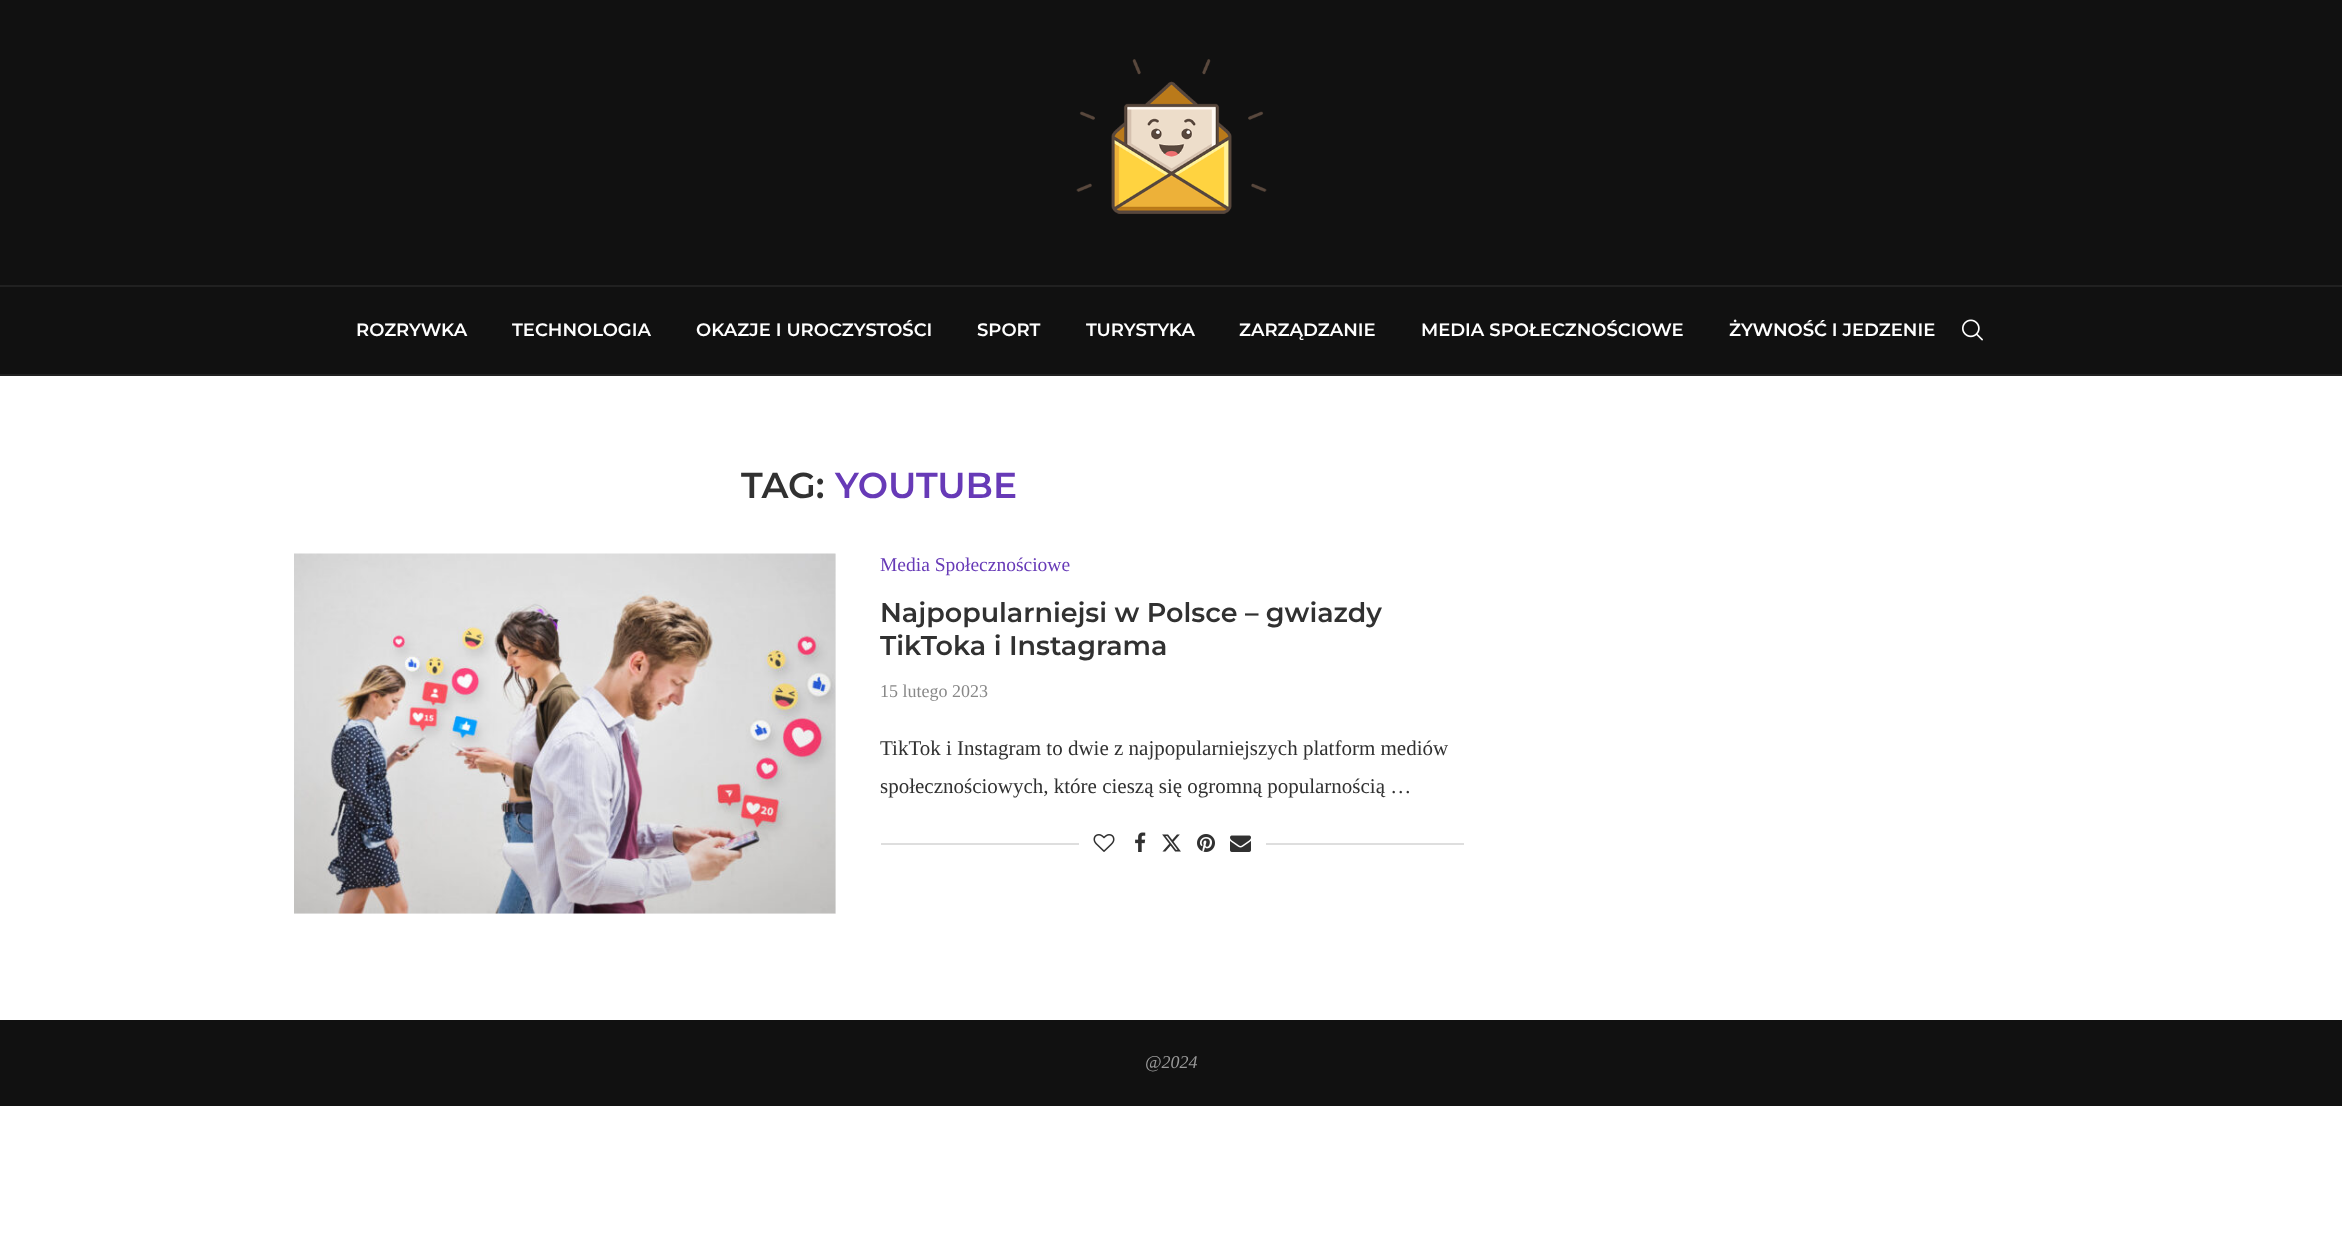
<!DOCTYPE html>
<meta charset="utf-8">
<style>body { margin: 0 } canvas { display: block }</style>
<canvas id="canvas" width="2342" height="1238"></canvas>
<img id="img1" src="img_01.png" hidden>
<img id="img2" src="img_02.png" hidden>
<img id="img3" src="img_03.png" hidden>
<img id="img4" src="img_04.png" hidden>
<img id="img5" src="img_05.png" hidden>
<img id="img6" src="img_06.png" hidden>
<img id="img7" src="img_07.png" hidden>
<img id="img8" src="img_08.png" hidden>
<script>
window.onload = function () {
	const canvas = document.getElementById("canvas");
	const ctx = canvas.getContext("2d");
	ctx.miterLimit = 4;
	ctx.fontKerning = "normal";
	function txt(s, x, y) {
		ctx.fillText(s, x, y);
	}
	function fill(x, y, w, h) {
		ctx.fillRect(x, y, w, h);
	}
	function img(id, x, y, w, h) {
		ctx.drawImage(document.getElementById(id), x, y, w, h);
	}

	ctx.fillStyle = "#FFFFFF";
	fill(0, 0, 2342, 1238);
	ctx.fillStyle = "#111111";
	fill(0, 0, 2342, 285);
	img("img1", 1076, 59, 191, 155);
	fill(0, 287, 2342, 87);
	ctx.fillStyle = "#212121";
	fill(0, 285, 2342, 2);
	fill(0, 374, 2342, 2);
	img("img2", 1962, 319, 21, 22);
	ctx.fillStyle = "#F5F5F5";
	fill(294, 554, 542, 360);
	img("img3", 294, 553, 542, 361);
	ctx.fillStyle = "#DEDEDE";
	fill(881, 843, 583, 2);
	ctx.fillStyle = "#FFFFFF";
	fill(1079, 843, 187, 2);
	img("img4", 1093, 834, 22, 18);
	img("img5", 1135, 832, 11, 20);
	img("img6", 1162, 834, 19, 18);
	img("img7", 1197, 834, 18, 18);
	img("img8", 1230, 835, 21, 17);
	ctx.fillStyle = "#111111";
	fill(0, 1020, 2342, 86);
	ctx.font = "600 18px Montserrat";
	ctx.fillStyle = "#FFFFFF";
	txt("ROZRYWKA", 356, 336);
	txt("TECHNOLOGIA", 512, 336);
	txt("OKAZJE I UROCZYSTOŚCI", 696, 336);
	txt("SPORT", 977, 336);
	txt("TURYSTYKA", 1086, 336);
	txt("ZARZĄDZANIE", 1239, 336);
	txt("MEDIA SPOŁECZNOŚCIOWE", 1421, 336);
	txt("ŻYWNOŚĆ I JEDZENIE", 1729, 336);
	ctx.font = "600 36px Montserrat";
	ctx.fillStyle = "#313131";
	txt("TAG:", 741, 498);
	ctx.fillStyle = "#673AB7";
	txt("YOUTUBE", 835, 498);
	ctx.font = "19.5px Liberation Serif";
	txt("Media Społecznościowe", 880, 571);
	ctx.font = "600 27px Montserrat";
	ctx.fillStyle = "#313131";
	txt("Najpopularniejsi w Polsce – gwiazdy", 880, 622);
	txt("TikToka i Instagrama", 880, 655);
	ctx.font = "18px Liberation Serif";
	ctx.fillStyle = "#888888";
	txt("15 lutego 2023", 880, 697);
	ctx.font = "21px Liberation Serif";
	ctx.fillStyle = "#313131";
	txt("TikTok i Instagram to dwie z najpopularniejszych platform mediów", 880, 755);
	txt("społecznościowych, które cieszą się ogromną popularnością …", 880, 793);
	ctx.font = "italic 18px Liberation Serif";
	ctx.fillStyle = "#999999";
	txt("@2024", 1145, 1068);
};
</script>
